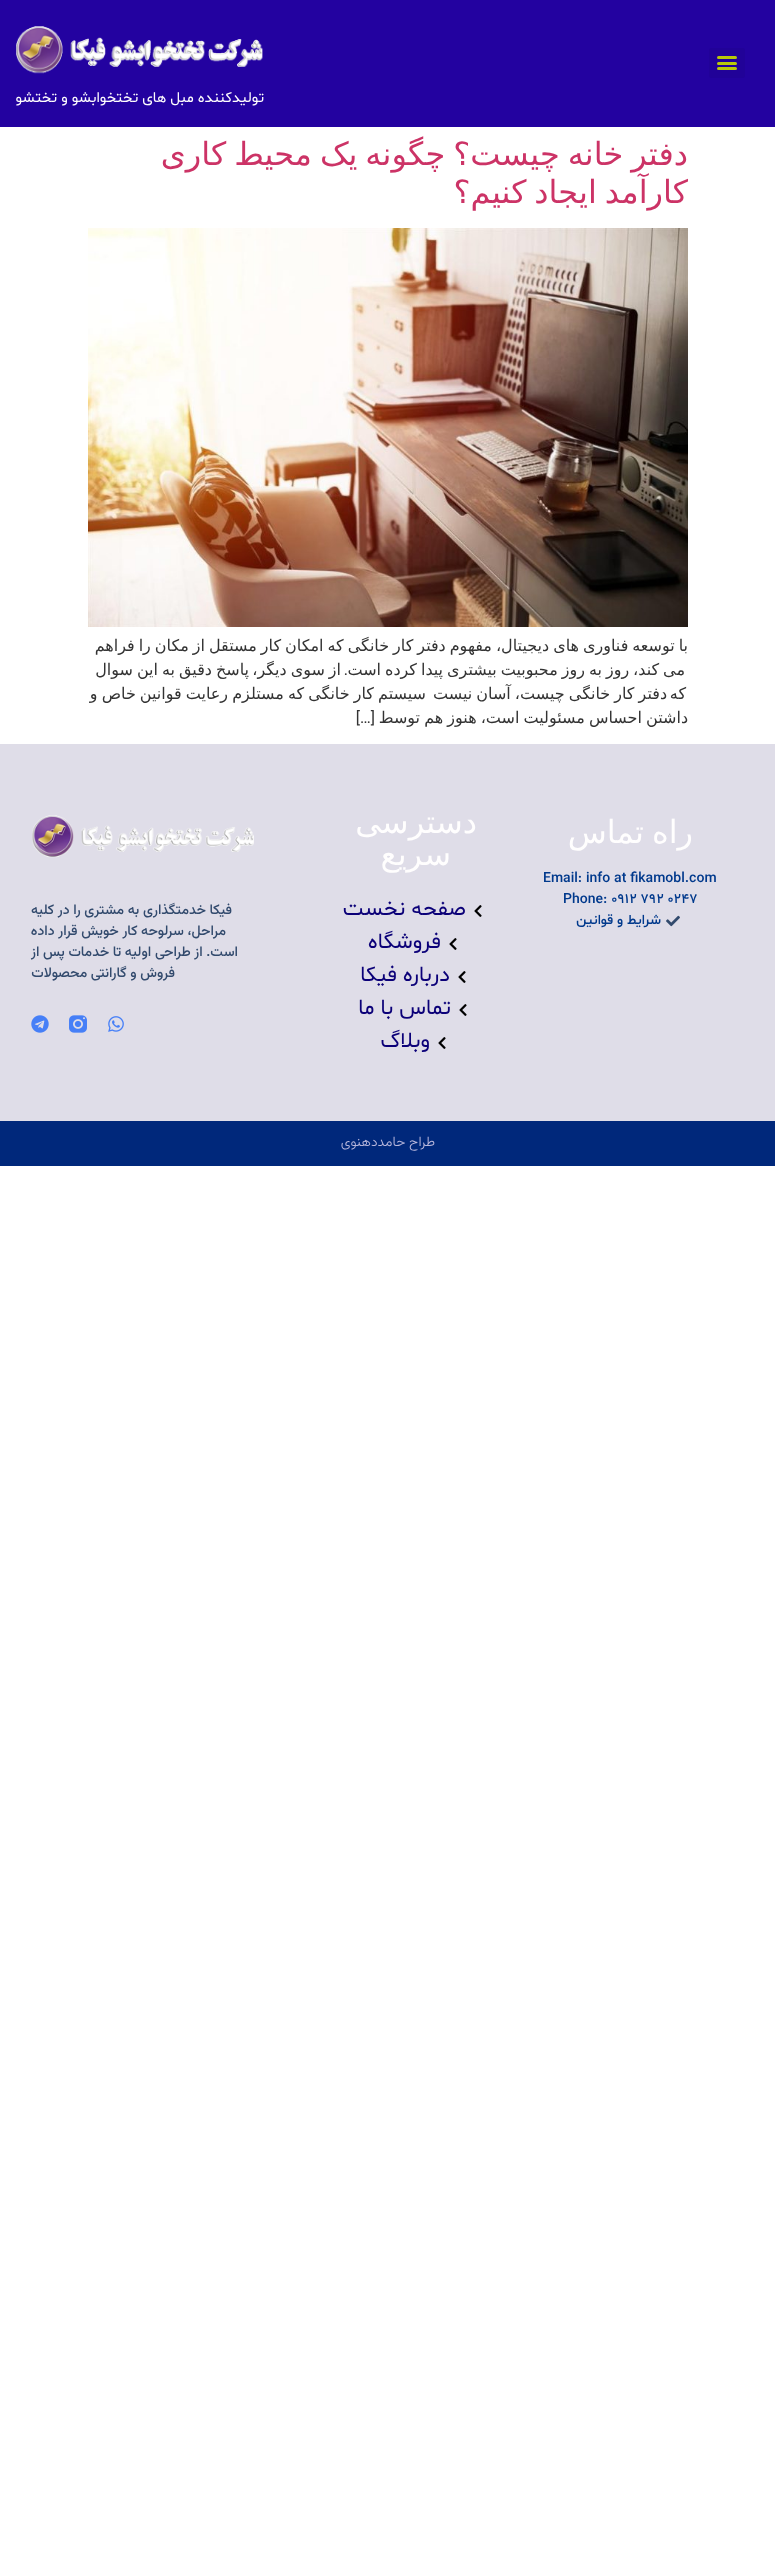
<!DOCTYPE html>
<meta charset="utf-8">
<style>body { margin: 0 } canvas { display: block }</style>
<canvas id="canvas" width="775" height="2558"></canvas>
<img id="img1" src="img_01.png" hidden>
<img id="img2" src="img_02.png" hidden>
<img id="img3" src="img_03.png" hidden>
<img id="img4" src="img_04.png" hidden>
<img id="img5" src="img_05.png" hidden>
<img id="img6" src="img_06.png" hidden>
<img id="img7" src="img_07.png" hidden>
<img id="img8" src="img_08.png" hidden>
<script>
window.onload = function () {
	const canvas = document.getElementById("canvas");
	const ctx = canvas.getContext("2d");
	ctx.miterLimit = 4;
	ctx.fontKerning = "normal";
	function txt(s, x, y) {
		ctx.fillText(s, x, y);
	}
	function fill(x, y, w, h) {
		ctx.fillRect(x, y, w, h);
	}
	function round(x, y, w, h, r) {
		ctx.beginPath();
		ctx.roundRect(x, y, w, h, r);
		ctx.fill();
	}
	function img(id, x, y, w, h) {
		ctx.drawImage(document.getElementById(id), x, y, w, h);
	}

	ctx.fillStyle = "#FFFFFF";
	fill(0, 0, 775, 2558);
	ctx.fillStyle = "#2302A0";
	fill(0, 0, 775, 127);
	ctx.fillStyle = "#210298";
	round(709, 48, 36, 30, 3);
	ctx.fillStyle = "#B9C908";
	round(717, 62, 20, 3, 1.5);
	round(717, 56, 20, 3, 1.5);
	round(717, 67, 20, 3, 1.5);
	img("img1", 16, 26, 247, 48);
	img("img2", 88, 228, 600, 399);
	ctx.fillStyle = "#DFDDE8";
	fill(0, 744, 775, 377);
	img("img3", 666, 915, 14, 12);
	img("img4", 474, 905, 8, 12);
	img("img4", 449, 938, 8, 12);
	img("img4", 458, 971, 8, 12);
	img("img4", 459, 1004, 8, 12);
	img("img4", 438, 1037, 8, 12);
	img("img5", 32, 815, 222, 43);
	img("img6", 108, 1016, 16, 16);
	img("img7", 69, 1015, 18, 18);
	img("img8", 31, 1015, 18, 18);
	ctx.fillStyle = "#00287B";
	fill(0, 1121, 775, 45);
	ctx.direction = "rtl";
	ctx.font = "15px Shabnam";
	ctx.fillStyle = "#FFFEFE";
	txt("تولیدکننده مبل های تختخوابشو و تختشو", 264, 102);
	ctx.wordSpacing = "-2.25px";
	ctx.font = "32px DejaVu Sans";
	ctx.fillStyle = "#CC3366";
	txt("دفتر خانه چیست؟ چگونه یک محیط کاری", 688, 165);
	txt("کارآمد ایجاد کنیم؟", 688, 203);
	ctx.wordSpacing = "-1.1px";
	ctx.font = "16px DejaVu Sans";
	ctx.fillStyle = "#333333";
	txt("با توسعه فناوری های دیجیتال، مفهوم دفتر کار خانگی که امکان کار مستقل از مکان را فراهم", 688, 651);
	txt("می کند، روز به روز محبوبیت بیشتری پیدا کرده است", 685, 675);
	ctx.wordSpacing = "0px";
	ctx.font = "16px Roboto";
	txt(".", 348, 675);
	ctx.wordSpacing = "-1.1px";
	ctx.font = "16px DejaVu Sans";
	txt("پاسخ دقیق به این سوال", 249, 675);
	txt("از سوی دیگر،", 341, 675);
	ctx.wordSpacing = "-1px";
	txt("دفتر کار خانگی چیست، آسان نیست", 667, 699);
	ctx.wordSpacing = "0px";
	txt("که", 686, 699);
	ctx.wordSpacing = "-1px";
	txt("سیستم کار خانگی که مستلزم رعایت قوانین خاص و", 426, 699);
	txt("داشتن احساس مسئولیت است، هنوز هم توسط", 688, 723);
	ctx.wordSpacing = "0px";
	ctx.font = "16px Roboto";
	txt("[…]", 375, 723);
	ctx.wordSpacing = "-2.25px";
	ctx.font = "32px DejaVu Sans";
	ctx.fillStyle = "#FFFEFE";
	txt("راه تماس", 693, 843);
	ctx.wordSpacing = "0px";
	ctx.direction = "ltr";
	ctx.font = "500 14px Shabnam";
	ctx.fillStyle = "#00398C";
	txt("Email: info at fikamobl.com", 543, 882);
	ctx.font = "500 14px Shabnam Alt";
	txt("Phone: 0912 792 0247", 563, 903);
	ctx.direction = "rtl";
	ctx.font = "500 14px Shabnam";
	txt("شرایط و قوانین", 661, 924);
	ctx.font = "32px DejaVu Sans";
	ctx.fillStyle = "#FFFEFE";
	txt("دسترسی", 477, 833);
	txt("سریع", 451, 865);
	ctx.font = "22px Shabnam";
	ctx.fillStyle = "#0B0078";
	txt("صفحه نخست", 466, 915);
	txt("فروشگاه", 441, 948);
	txt("درباره فیکا", 450, 981);
	txt("تماس با ما", 451, 1014);
	txt("وبلاگ", 430, 1047);
	ctx.font = "500 14px Vazirmatn";
	ctx.fillStyle = "#324A6D";
	txt("فیکا خدمتگذاری به مشتری را در کلیه", 232, 914);
	txt("مراحل، سرلوحه کار خویش قرار داده", 226, 935);
	txt("است. از طراحی اولیه تا خدمات پس از", 238, 956);
	txt("فروش و گارانتی محصولات", 175, 977);
	ctx.font = "300 14px Vazirmatn";
	ctx.fillStyle = "#B9B8DC";
	txt("طراح حامددهنوی", 435, 1146);
};
</script>
